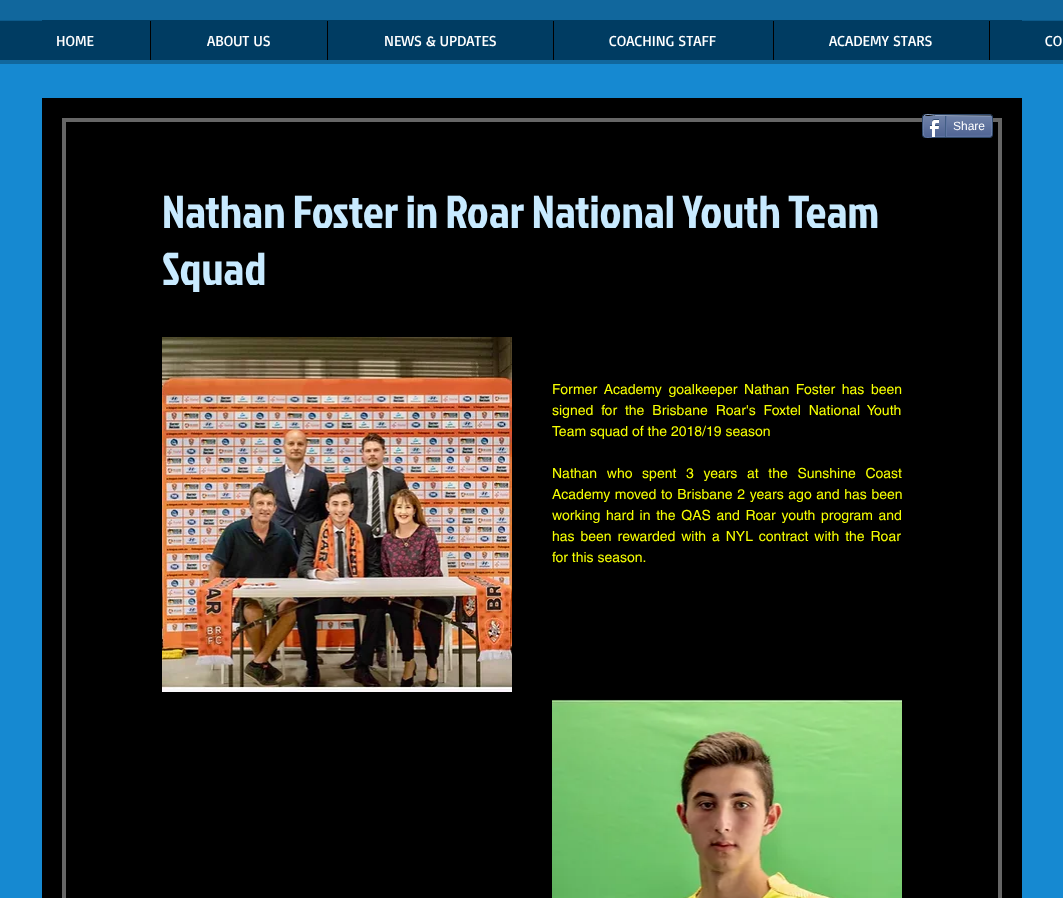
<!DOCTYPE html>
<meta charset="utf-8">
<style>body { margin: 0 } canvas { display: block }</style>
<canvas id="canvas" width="1063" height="898"></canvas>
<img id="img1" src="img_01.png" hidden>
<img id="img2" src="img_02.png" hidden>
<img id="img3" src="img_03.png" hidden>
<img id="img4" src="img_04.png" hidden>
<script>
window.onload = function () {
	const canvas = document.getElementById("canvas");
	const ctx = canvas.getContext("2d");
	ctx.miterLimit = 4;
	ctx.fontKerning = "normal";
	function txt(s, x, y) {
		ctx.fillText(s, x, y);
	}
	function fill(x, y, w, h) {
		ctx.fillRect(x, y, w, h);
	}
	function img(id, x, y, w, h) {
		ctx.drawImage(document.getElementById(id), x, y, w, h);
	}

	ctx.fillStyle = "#1689D1";
	fill(0, 0, 1063, 898);
	ctx.fillStyle = "#11679D";
	fill(0, 0, 1063, 64);
	ctx.fillStyle = "#0C5A8B";
	fill(0, 20, 1063, 1);
	ctx.fillStyle = "#003C62";
	fill(42, 20, 980, 1);
	fill(0, 21, 1063, 39);
	ctx.fillStyle = "#000000";
	fill(150, 21, 1, 39);
	fill(327, 21, 1, 39);
	fill(553, 21, 1, 39);
	fill(773, 21, 1, 39);
	fill(989, 21, 1, 39);
	fill(42, 98, 980, 800);
	ctx.strokeStyle = "#666666";
	ctx.lineWidth = 4;
	ctx.strokeRect(64, 120, 936, 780);
	ctx.beginPath();
	ctx.roundRect(922.5, 114.5, 70, 23, 2.5);
	ctx.strokeStyle = "#2D4565";
	ctx.lineWidth = 1;
	ctx.stroke();
	img("img1", 923, 116, 69, 21);
	ctx.beginPath();
	ctx.moveTo(924, 116);
	ctx.bezierCurveTo(927, 113, 932, 115.5, 936, 115.5);
	ctx.lineTo(991, 116);
	ctx.strokeStyle = "#9AABC6";
	ctx.stroke();
	ctx.beginPath();
	ctx.moveTo(991, 116);
	ctx.bezierCurveTo(992, 116.5, 992, 135.5, 991, 136);
	ctx.strokeStyle = "#6F83AD";
	ctx.stroke();
	ctx.beginPath();
	ctx.moveTo(991, 136);
	ctx.lineTo(936, 136.5);
	ctx.bezierCurveTo(932, 136.5, 927, 139, 924, 136);
	ctx.strokeStyle = "#6176A3";
	ctx.stroke();
	ctx.beginPath();
	ctx.moveTo(924, 136);
	ctx.bezierCurveTo(923, 135.5, 923, 116.5, 924, 116);
	ctx.strokeStyle = "#6F83AD";
	ctx.stroke();
	img("img2", 929, 119, 10, 18);
	ctx.fillStyle = "#425E85";
	fill(945, 116, 1, 21);
	ctx.fillStyle = "#6176A3";
	fill(946, 116, 1, 20);
	img("img3", 162, 337, 350, 355);
	img("img4", 552, 699, 350, 199);
	ctx.font = "15px Basic";
	ctx.fillStyle = "#FFFFFF";
	txt("HOME", 56, 46);
	txt("ABOUT US", 207, 46);
	txt("NEWS & UPDATES", 384, 46);
	txt("COACHING STAFF", 609, 46);
	txt("ACADEMY STARS", 829, 46);
	txt("CO", 1045, 46);
	ctx.font = "12px Liberation Sans";
	txt("Share", 953, 130);
	ctx.font = "46px Jockey One";
	ctx.fillStyle = "#C8EAFF";
	txt("Nathan Foster in Roar National Youth Team", 162, 228);
	txt("Squad", 162, 285);
	ctx.wordSpacing = "2.75px";
	ctx.font = "14px helvetica";
	ctx.fillStyle = "#F6FF00";
	txt("Former Academy goalkeeper Nathan Foster has been", 552, 394);
	ctx.wordSpacing = "4px";
	txt("signed for the Brisbane Roar's Foxtel National Youth", 552, 415);
	ctx.wordSpacing = "0px";
	txt("Team squad of the 2018/19 season", 552, 436);
	ctx.wordSpacing = "5.75px";
	txt("Nathan who spent 3 years at the Sunshine Coast", 552, 478);
	ctx.wordSpacing = "0.75px";
	txt("Academy moved to Brisbane 2 years ago and has been", 552, 499);
	ctx.wordSpacing = "1.75px";
	txt("working hard in the QAS and Roar youth program and", 552, 520);
	ctx.wordSpacing = "2px";
	txt("has been rewarded with a NYL contract with the Roar", 552, 541);
	ctx.wordSpacing = "0px";
	txt("for this season.", 552, 562);
};
</script>
